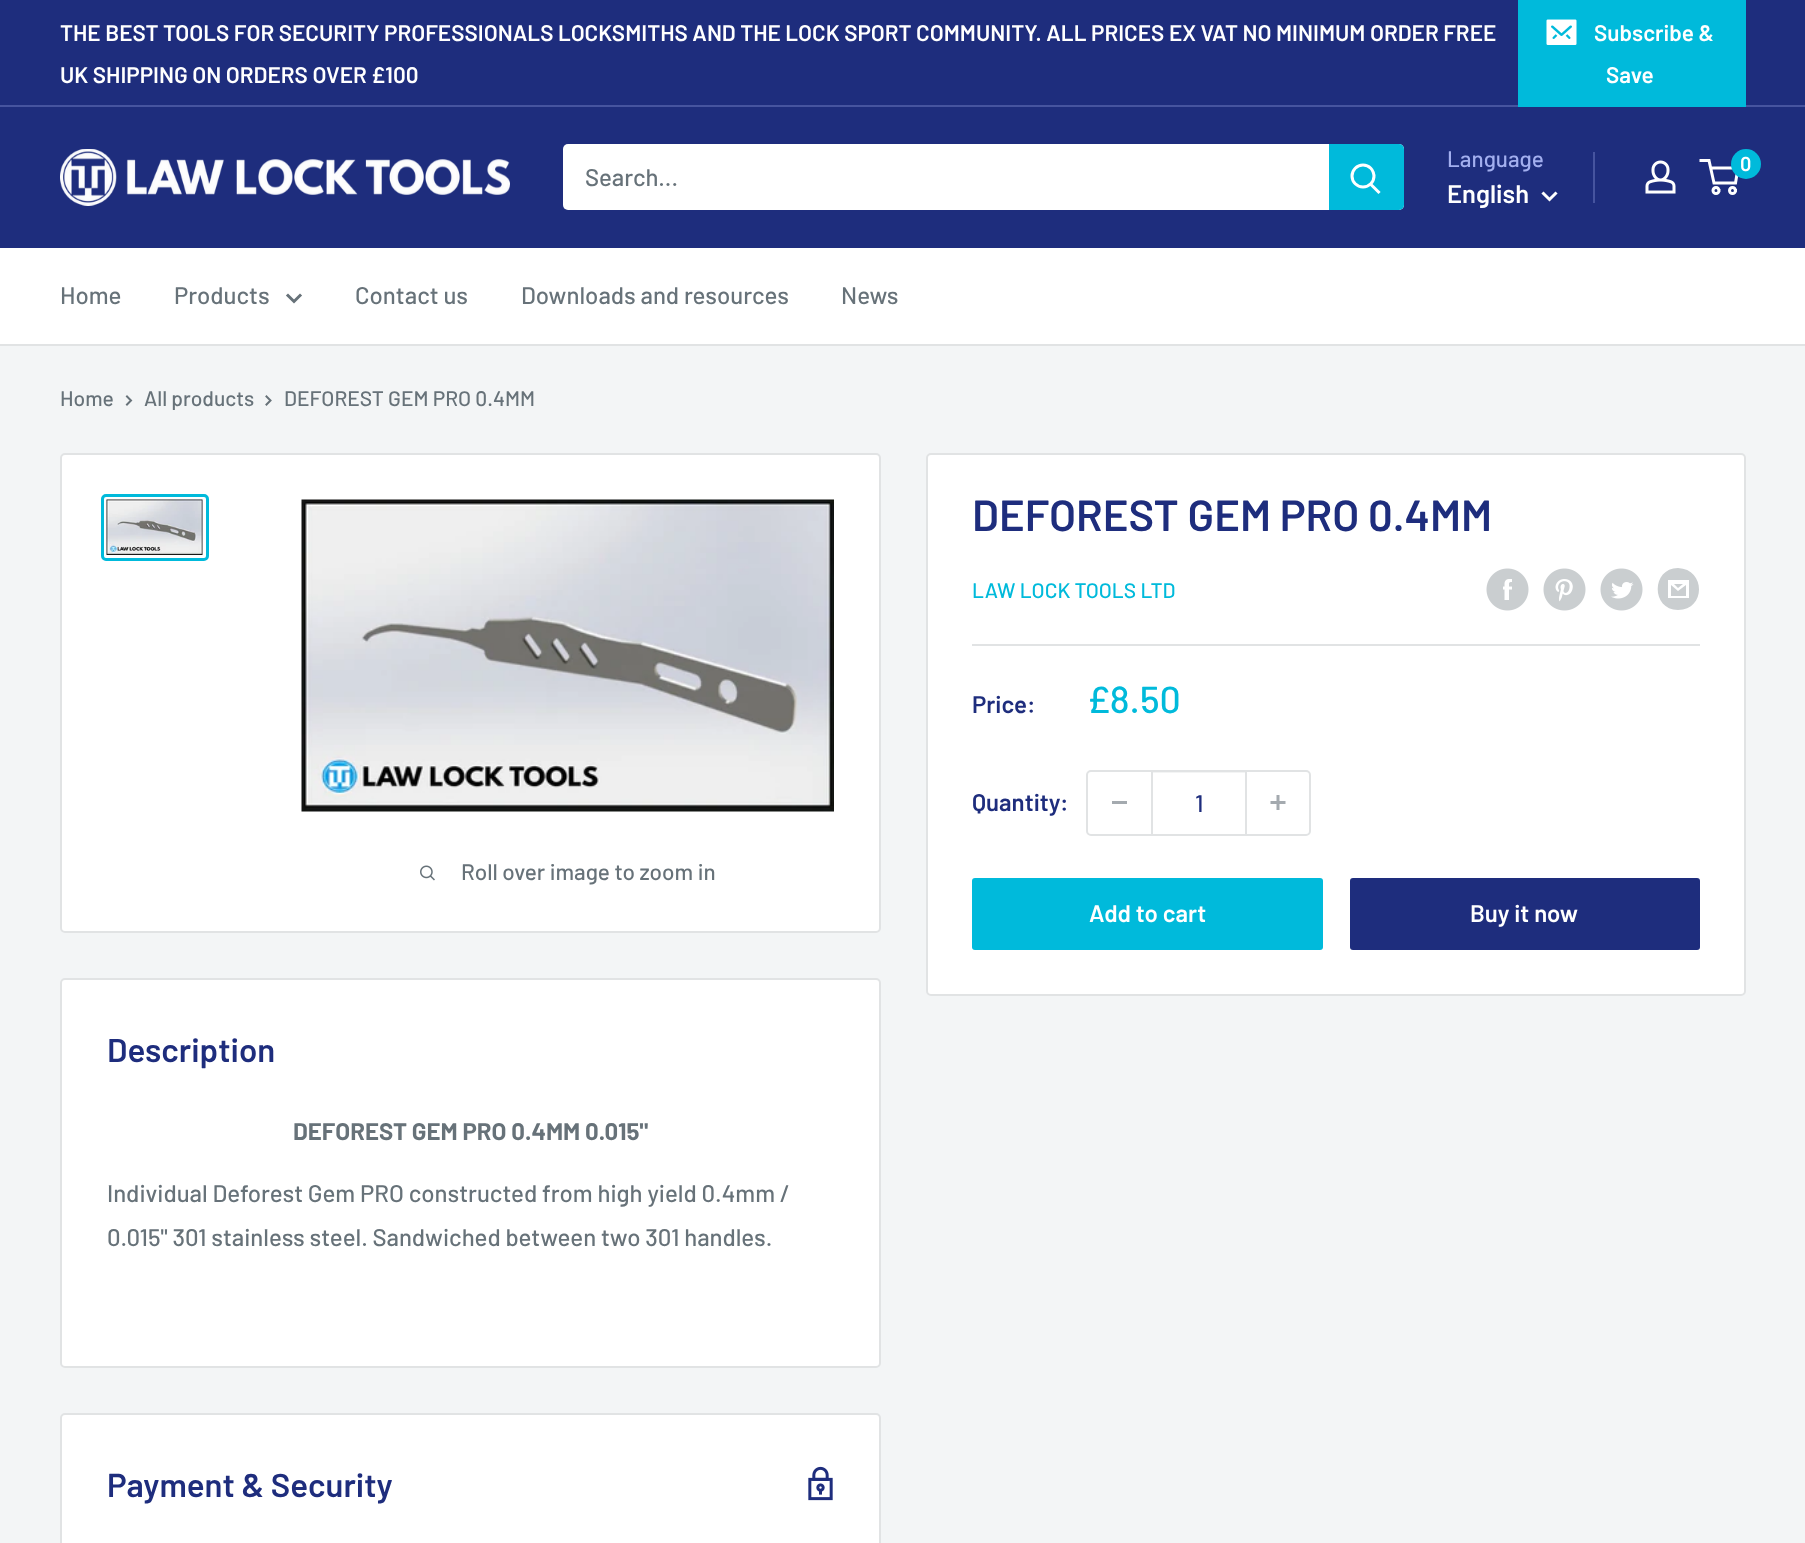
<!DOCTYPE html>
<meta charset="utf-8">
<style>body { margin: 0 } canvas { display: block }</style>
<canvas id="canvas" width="1805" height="1543"></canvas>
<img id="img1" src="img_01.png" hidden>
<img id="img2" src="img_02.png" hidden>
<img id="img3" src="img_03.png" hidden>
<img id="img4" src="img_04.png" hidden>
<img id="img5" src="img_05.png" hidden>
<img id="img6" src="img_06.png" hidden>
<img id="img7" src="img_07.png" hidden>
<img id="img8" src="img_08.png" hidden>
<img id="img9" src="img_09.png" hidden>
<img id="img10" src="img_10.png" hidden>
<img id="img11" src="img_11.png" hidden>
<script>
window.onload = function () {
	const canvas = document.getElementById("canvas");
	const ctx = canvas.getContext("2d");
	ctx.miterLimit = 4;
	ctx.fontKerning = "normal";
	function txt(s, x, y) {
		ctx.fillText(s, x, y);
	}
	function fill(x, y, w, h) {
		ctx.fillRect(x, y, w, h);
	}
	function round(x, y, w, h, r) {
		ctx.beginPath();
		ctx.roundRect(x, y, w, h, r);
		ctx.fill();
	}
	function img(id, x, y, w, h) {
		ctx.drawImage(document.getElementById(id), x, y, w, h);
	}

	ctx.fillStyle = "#F3F5F6";
	fill(0, 0, 1805, 1543);
	ctx.fillStyle = "#1E2D7D";
	fill(0, 0, 1805, 105);
	ctx.fillStyle = "#46549F";
	fill(0, 105, 1805, 2);
	ctx.fillStyle = "#00BADB";
	fill(1518, 0, 228, 107);
	img("img1", 1546, 19, 31, 26);
	ctx.fillStyle = "#1E2D7D";
	fill(0, 107, 1805, 141);
	img("img2", 60, 149, 450, 57);
	ctx.fillStyle = "#FFFFFF";
	round(563, 144, 841, 66, 5);
	ctx.fillStyle = "#00BADB";
	ctx.beginPath();
	ctx.roundRect(1329, 144, 75, 66, [0, 5, 5, 0]);
	ctx.fill();
	ctx.beginPath();
	ctx.moveTo(1378.5, 192);
	ctx.lineTo(1371, 184.5);
	ctx.strokeStyle = "#FFFFFF";
	ctx.lineWidth = 3;
	ctx.lineCap = "square";
	ctx.stroke();
	ctx.beginPath();
	ctx.arc(1363, 176, 11, 0, Math.PI * 2);
	ctx.stroke();
	ctx.beginPath();
	ctx.moveTo(1555.5, 193.5);
	ctx.lineTo(1549.5, 199.5);
	ctx.lineTo(1543.5, 193.5);
	ctx.stroke();
	ctx.fillStyle = "#46549F";
	fill(1593, 152, 2, 51);
	img("img3", 1645, 160, 31, 34);
	ctx.beginPath();
	ctx.arc(1716, 190.5, 3, 0, Math.PI * 2);
	ctx.stroke();
	ctx.beginPath();
	ctx.arc(1732.5, 190.5, 3, 0, Math.PI * 2);
	ctx.stroke();
	ctx.beginPath();
	ctx.moveTo(1710.5, 168);
	ctx.lineTo(1738, 168);
	ctx.lineTo(1735.5, 183);
	ctx.lineTo(1714, 183);
	ctx.lineTo(1709, 160.5);
	ctx.lineTo(1699.5, 160.5);
	ctx.lineCap = "butt";
	ctx.stroke();
	ctx.fillStyle = "#00BADB";
	ctx.beginPath();
	ctx.arc(1746, 164, 15, 0, Math.PI * 2);
	ctx.fill();
	ctx.fillStyle = "#FFFFFF";
	fill(0, 248, 1805, 96);
	ctx.fillStyle = "#E1E3E4";
	fill(0, 344, 1805, 2);
	ctx.beginPath();
	ctx.moveTo(300, 295.5);
	ctx.lineTo(294, 301.5);
	ctx.lineTo(288, 295.5);
	ctx.strokeStyle = "#677279";
	ctx.lineCap = "square";
	ctx.stroke();
	ctx.beginPath();
	ctx.moveTo(127, 396.5);
	ctx.lineTo(131, 400.5);
	ctx.lineTo(127, 404.5);
	ctx.lineWidth = 2;
	ctx.stroke();
	ctx.beginPath();
	ctx.moveTo(266.5, 396.5);
	ctx.lineTo(270.5, 400.5);
	ctx.lineTo(266.5, 404.5);
	ctx.stroke();
	ctx.fillStyle = "#FFFFFF";
	ctx.beginPath();
	ctx.roundRect(61, 454, 819, 478, 4);
	ctx.fill();
	ctx.strokeStyle = "#E1E3E4";
	ctx.stroke();
	ctx.beginPath();
	ctx.roundRect(102.5, 495.5, 105, 64, 3.5);
	ctx.strokeStyle = "#00BADB";
	ctx.lineWidth = 3;
	ctx.stroke();
	img("img4", 106, 499, 97, 56);
	img("img5", 301, 499, 533, 313);
	img("img6", 420, 865, 15, 16);
	ctx.beginPath();
	ctx.roundRect(927, 454, 818, 541, 4);
	ctx.fill();
	ctx.strokeStyle = "#E1E3E4";
	ctx.lineWidth = 2;
	ctx.stroke();
	img("img7", 1486, 568, 43, 43);
	img("img8", 1543, 568, 43, 43);
	img("img9", 1600, 568, 43, 43);
	ctx.fillStyle = "#CACED0";
	ctx.beginPath();
	ctx.moveTo(1678, 610);
	ctx.bezierCurveTo(1651, 610, 1651, 568, 1678, 568);
	ctx.bezierCurveTo(1706, 569, 1706, 610, 1678, 610);
	ctx.closePath();
	ctx.moveTo(1674, 584);
	ctx.lineTo(1683, 584);
	ctx.lineTo(1678, 588);
	ctx.closePath();
	ctx.moveTo(1686, 585);
	ctx.lineTo(1686, 596);
	ctx.lineTo(1671, 596);
	ctx.lineTo(1671, 585);
	ctx.lineTo(1678, 591);
	ctx.closePath();
	ctx.moveTo(1689, 580);
	ctx.lineTo(1668, 580);
	ctx.lineTo(1668, 598);
	ctx.lineTo(1689, 598);
	ctx.closePath();
	ctx.fill();
	ctx.fillStyle = "#E1E3E4";
	fill(972, 644, 728, 2);
	ctx.beginPath();
	ctx.roundRect(1087, 771, 223, 64, 4);
	ctx.stroke();
	ctx.fillStyle = "#A4AAAF";
	fill(1112, 801, 15, 3);
	ctx.fillStyle = "rgba(225, 227, 228, 0.4)";
	fill(1152, 772, 93, 1);
	ctx.fillStyle = "#E1E3E4";
	fill(1245, 771, 2, 63);
	fill(1151, 771, 2, 63);
	img("img10", 1270, 795, 16, 15);
	ctx.fillStyle = "#00BADB";
	round(972, 878, 351, 72, 3);
	ctx.fillStyle = "#1E2D7D";
	round(1350, 878, 350, 72, 3);
	ctx.fillStyle = "#FFFFFF";
	ctx.beginPath();
	ctx.roundRect(61, 979, 819, 388, 4);
	ctx.fill();
	ctx.stroke();
	ctx.beginPath();
	ctx.roundRect(61, 1414, 819, 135, 4);
	ctx.fill();
	ctx.stroke();
	img("img11", 808, 1466, 25, 35);
	ctx.font = "600 22.5px Barlow";
	txt("THE BEST TOOLS FOR SECURITY PROFESSIONALS LOCKSMITHS AND THE LOCK SPORT COMMUNITY. ALL PRICES EX VAT NO MINIMUM ORDER FREE", 60, 41);
	txt("UK SHIPPING ON ORDERS OVER £100", 60, 83);
	txt("Subscribe &", 1594, 41);
	txt("Save", 1606, 83);
	ctx.font = "500 24px Barlow";
	ctx.fillStyle = "#677279";
	txt("Search...", 585, 186);
	ctx.font = "500 22.5px Barlow";
	ctx.fillStyle = "#A3AFEF";
	txt("Language", 1447, 167);
	ctx.font = "600 25.5px Barlow";
	ctx.fillStyle = "#FFFFFF";
	txt("English", 1447, 203);
	ctx.font = "600 20px Barlow";
	txt("0", 1740, 171);
	ctx.font = "500 24px Barlow";
	ctx.fillStyle = "#677279";
	txt("Home", 60, 304);
	txt("Products", 174, 304);
	txt("Contact us", 355, 304);
	txt("Downloads and resources", 521, 304);
	txt("News", 841, 304);
	ctx.font = "500 21px Barlow";
	txt("Home", 60, 406);
	txt("All products", 144, 406);
	txt("DEFOREST GEM PRO 0.4MM", 284, 406);
	ctx.font = "500 22.5px Barlow";
	txt("Roll over image to zoom in", 461, 880);
	ctx.font = "600 43.5px Barlow";
	ctx.fillStyle = "#1E2D7D";
	txt("DEFOREST GEM PRO 0.4MM", 972, 531);
	ctx.font = "500 21px Barlow";
	ctx.fillStyle = "#00BADB";
	txt("LAW LOCK TOOLS LTD", 972, 598);
	ctx.font = "600 24px Barlow";
	ctx.fillStyle = "#1E2D7D";
	txt("Price:", 972, 713);
	ctx.font = "500 37.5px Barlow";
	ctx.fillStyle = "#00BADB";
	txt("£8.50", 1087, 713);
	ctx.font = "600 24px Barlow";
	ctx.fillStyle = "#1E2D7D";
	txt("Quantity:", 972, 811);
	ctx.font = "500 24px Barlow";
	txt("1", 1195, 812);
	ctx.font = "600 24px Barlow";
	ctx.fillStyle = "#FFFFFF";
	txt("Add to cart", 1089, 922);
	txt("Buy it now", 1470, 922);
	ctx.font = "600 33px Barlow";
	ctx.fillStyle = "#1E2D7D";
	txt("Description", 107, 1062);
	ctx.font = "bold 24px Barlow";
	ctx.fillStyle = "#677279";
	txt("DEFOREST GEM PRO 0.4MM 0.015\"", 293, 1140);
	ctx.font = "500 24px Barlow";
	txt("Individual Deforest Gem PRO constructed from high yield 0.4mm /", 107, 1202);
	txt("0.015\" 301 stainless steel. Sandwiched between two 301 handles.", 107, 1246);
	ctx.font = "600 33px Barlow";
	ctx.fillStyle = "#1E2D7D";
	txt("Payment & Security", 107, 1497);
};
</script>
